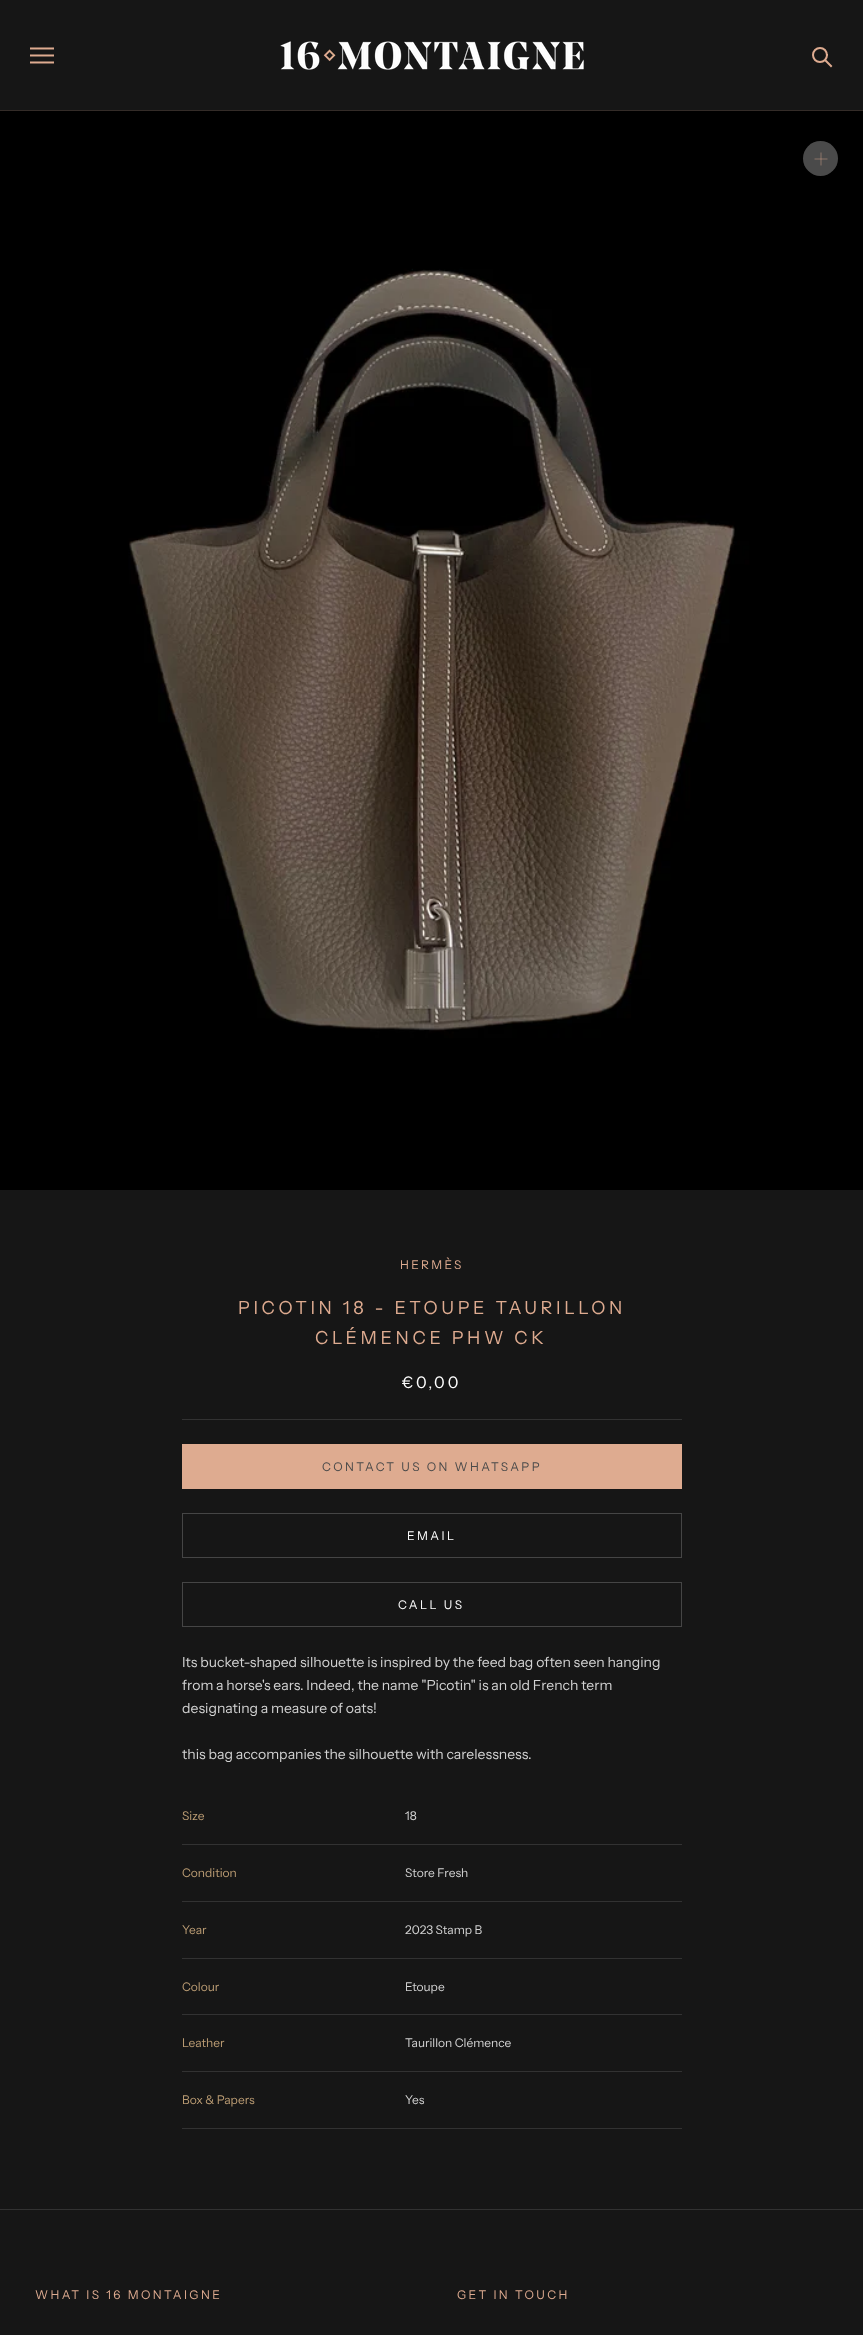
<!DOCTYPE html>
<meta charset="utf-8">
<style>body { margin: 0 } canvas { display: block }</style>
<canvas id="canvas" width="863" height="2335"></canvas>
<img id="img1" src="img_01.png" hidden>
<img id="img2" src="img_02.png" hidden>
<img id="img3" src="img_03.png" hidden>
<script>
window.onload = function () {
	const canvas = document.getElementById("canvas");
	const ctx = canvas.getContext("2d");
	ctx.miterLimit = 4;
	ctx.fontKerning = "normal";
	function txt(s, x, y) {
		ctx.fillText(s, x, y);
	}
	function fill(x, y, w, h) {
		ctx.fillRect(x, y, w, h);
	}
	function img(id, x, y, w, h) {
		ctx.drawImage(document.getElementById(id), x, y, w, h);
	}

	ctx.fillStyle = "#161616";
	fill(0, 0, 863, 2335);
	ctx.fillStyle = "#342C28";
	fill(0, 110, 863, 1);
	img("img1", 30, 47, 24, 17);
	img("img2", 280, 41, 304, 29);
	ctx.beginPath();
	ctx.moveTo(831, 66);
	ctx.lineTo(825.5, 60.5);
	ctx.strokeStyle = "#DEAB90";
	ctx.lineWidth = 2;
	ctx.lineCap = "square";
	ctx.stroke();
	ctx.beginPath();
	ctx.arc(820, 55, 7, 0, Math.PI * 2);
	ctx.stroke();
	img("img3", 0, 111, 863, 1079);
	ctx.fillStyle = "#4A4A4A";
	ctx.beginPath();
	ctx.arc(820.5, 158.5, 17.5, 0, Math.PI * 2);
	ctx.fill();
	ctx.beginPath();
	ctx.moveTo(821, 153);
	ctx.lineTo(821, 165);
	ctx.strokeStyle = "#947B6D";
	ctx.lineWidth = 0.9;
	ctx.stroke();
	ctx.beginPath();
	ctx.moveTo(815, 159);
	ctx.lineTo(827, 159);
	ctx.strokeStyle = "rgba(222, 171, 144, 0.5)";
	ctx.stroke();
	ctx.fillStyle = "#323232";
	fill(182, 1419, 500, 1);
	ctx.strokeStyle = "#DEAB90";
	ctx.lineWidth = 1;
	ctx.strokeRect(182.5, 1444.5, 499, 44);
	ctx.fillStyle = "#DEAB90";
	fill(183, 1445, 498, 43);
	ctx.strokeStyle = "#454545";
	ctx.strokeRect(182.5, 1513.5, 499, 44);
	ctx.strokeRect(182.5, 1582.5, 499, 44);
	ctx.fillStyle = "#323232";
	fill(182, 1844, 500, 1);
	fill(182, 1901, 500, 1);
	fill(182, 1958, 500, 1);
	fill(182, 2014, 500, 1);
	fill(182, 2071, 500, 1);
	fill(182, 2128, 500, 1);
	fill(0, 2209, 863, 1);
	ctx.letterSpacing = "2.4px";
	ctx.font = "12px Instrument Sans";
	ctx.fillStyle = "#DEAB90";
	txt("HERMÈS", 400, 1269);
	ctx.letterSpacing = "3.6px";
	ctx.font = "18px Instrument Sans";
	txt("PICOTIN 18 - ETOUPE TAURILLON", 238, 1314);
	txt("CLÉMENCE PHW CK", 315, 1344);
	ctx.letterSpacing = "2.75px";
	ctx.font = "16px Instrument Sans";
	ctx.fillStyle = "#FFFFFF";
	txt("€0,00", 402, 1388);
	ctx.letterSpacing = "2.4px";
	ctx.font = "12px Instrument Sans";
	ctx.fillStyle = "#4A4A4A";
	txt("CONTACT US ON WHATSAPP", 322, 1471);
	ctx.fillStyle = "#FFFFFF";
	txt("EMAIL", 407, 1540);
	txt("CALL US", 398, 1609);
	ctx.letterSpacing = "0px";
	ctx.font = "14px Instrument Sans";
	ctx.fillStyle = "#D2D2D2";
	txt("Its bucket-shaped silhouette is inspired by the feed bag often seen hanging", 182, 1667);
	txt("from a horse's ears. Indeed, the name \"Picotin\" is an old French term", 182, 1690);
	txt("designating a measure of oats!", 182, 1713);
	txt("this bag accompanies the silhouette with carelessness.", 182, 1759);
	ctx.font = "12px Instrument Sans";
	ctx.fillStyle = "#BC9D74";
	txt("Size", 182, 1820);
	ctx.fillStyle = "#D2D2D2";
	txt("18", 405, 1820);
	ctx.fillStyle = "#BC9D74";
	txt("Condition", 182, 1877);
	ctx.fillStyle = "#D2D2D2";
	txt("Store Fresh", 405, 1877);
	ctx.fillStyle = "#BC9D74";
	txt("Year", 182, 1934);
	ctx.fillStyle = "#D2D2D2";
	txt("2023 Stamp B", 405, 1934);
	ctx.fillStyle = "#BC9D74";
	txt("Colour", 182, 1991);
	ctx.fillStyle = "#D2D2D2";
	txt("Etoupe", 405, 1991);
	ctx.fillStyle = "#BC9D74";
	txt("Leather", 182, 2047);
	ctx.fillStyle = "#D2D2D2";
	txt("Taurillon Clémence", 405, 2047);
	ctx.fillStyle = "#BC9D74";
	txt("Box & Papers", 182, 2104);
	ctx.fillStyle = "#D2D2D2";
	txt("Yes", 405, 2104);
	ctx.letterSpacing = "2.4px";
	ctx.fillStyle = "#DEAB90";
	txt("WHAT IS 16 MONTAIGNE", 35, 2299);
	txt("GET IN TOUCH", 457, 2299);
};
</script>
